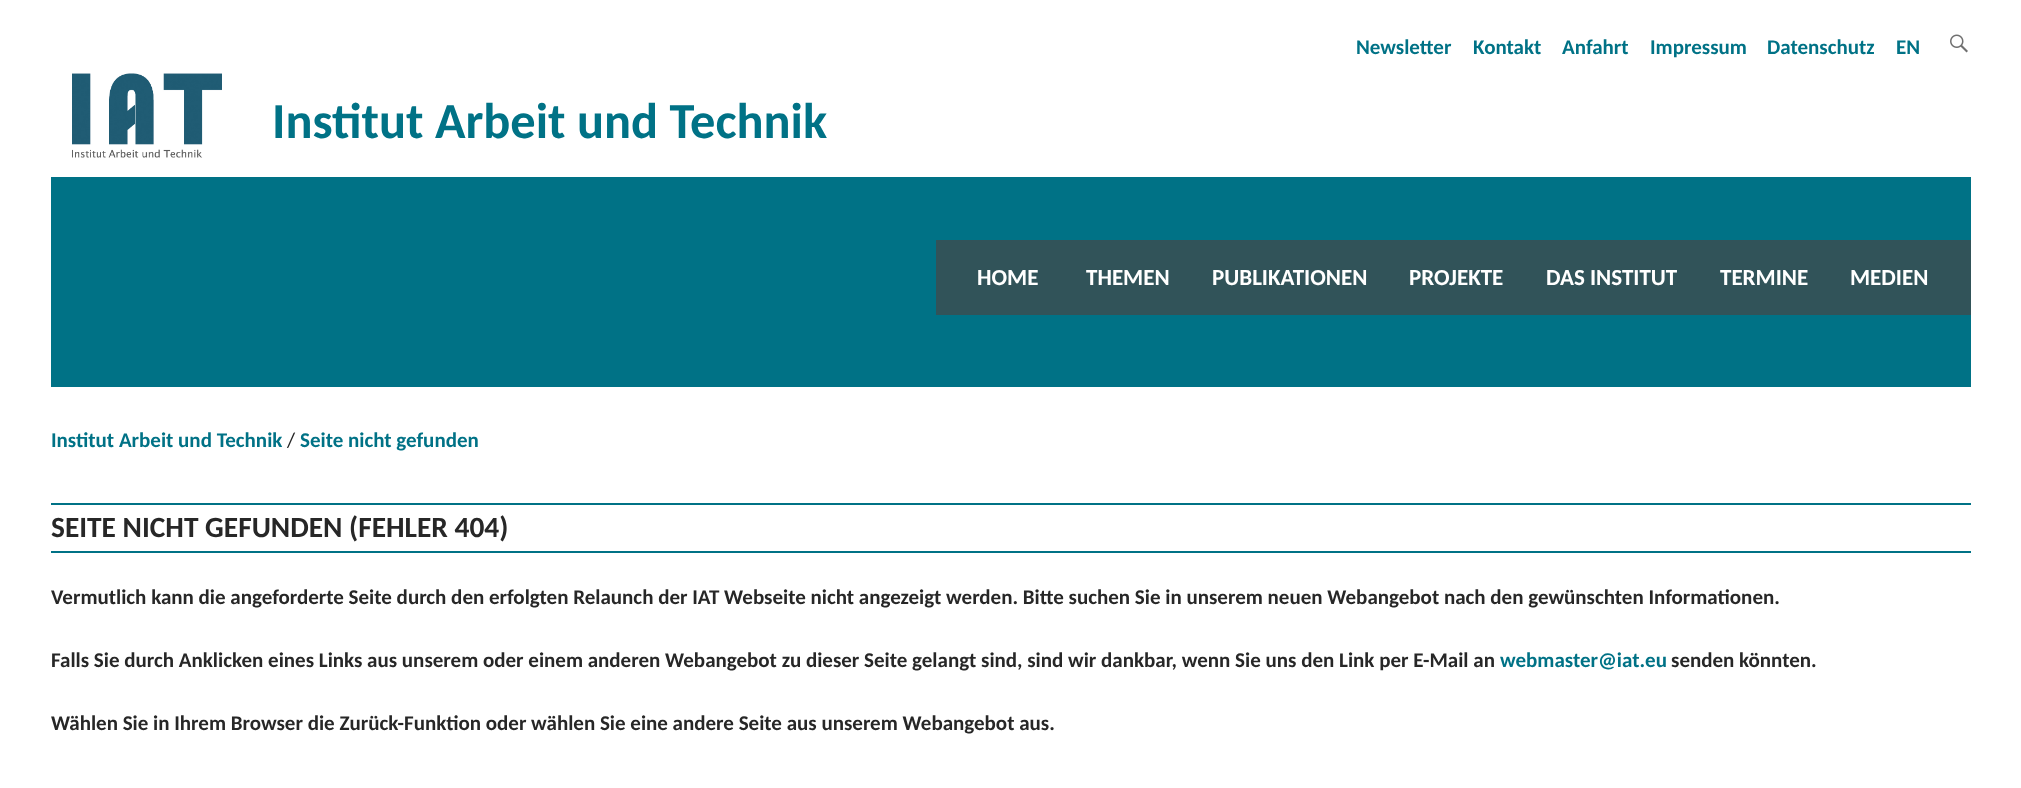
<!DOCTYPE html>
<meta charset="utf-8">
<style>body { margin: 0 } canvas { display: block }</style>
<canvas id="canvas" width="2021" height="788"></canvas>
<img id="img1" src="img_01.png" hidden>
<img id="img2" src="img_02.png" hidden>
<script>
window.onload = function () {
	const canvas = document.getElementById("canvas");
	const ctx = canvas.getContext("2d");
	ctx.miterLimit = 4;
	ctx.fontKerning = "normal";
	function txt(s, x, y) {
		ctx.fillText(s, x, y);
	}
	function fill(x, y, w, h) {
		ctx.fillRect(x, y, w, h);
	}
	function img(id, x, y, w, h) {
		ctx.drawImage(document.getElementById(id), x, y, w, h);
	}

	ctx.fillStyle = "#FFFFFF";
	fill(0, 0, 2021, 788);
	img("img1", 1950, 34, 18, 19);
	img("img2", 72, 73, 150, 85);
	ctx.fillStyle = "#007286";
	fill(51, 177, 1920, 210);
	ctx.fillStyle = "#315359";
	fill(936, 240, 1035, 75);
	ctx.fillStyle = "#007286";
	fill(51, 503, 1920, 2);
	fill(51, 551, 1920, 2);
	ctx.font = "bold 21px Carlito";
	txt("Newsletter", 1356, 54);
	txt("Kontakt", 1473, 54);
	txt("Anfahrt", 1562, 54);
	txt("Impressum", 1650, 54);
	txt("Datenschutz", 1767, 54);
	txt("EN", 1896, 54);
	ctx.font = "bold 50.4px Carlito";
	txt("Institut Arbeit und Technik", 272, 138);
	ctx.font = "bold 23px Carlito";
	ctx.fillStyle = "#FFFFFF";
	txt("HOME", 977, 285);
	txt("THEMEN", 1086, 285);
	txt("PUBLIKATIONEN", 1212, 285);
	txt("PROJEKTE", 1409, 285);
	txt("DAS INSTITUT", 1546, 285);
	txt("TERMINE", 1720, 285);
	txt("MEDIEN", 1850, 285);
	ctx.font = "bold 21px Carlito";
	ctx.fillStyle = "#007286";
	txt("Institut Arbeit und Technik", 51, 447);
	ctx.font = "21px Carlito";
	ctx.fillStyle = "#272727";
	txt("/", 287, 447);
	ctx.font = "bold 21px Carlito";
	ctx.fillStyle = "#007286";
	txt("Seite nicht gefunden", 300, 447);
	ctx.font = "bold 29.4px Carlito";
	ctx.fillStyle = "#272727";
	txt("SEITE NICHT GEFUNDEN (FEHLER 404)", 51, 537);
	ctx.font = "bold 21px Carlito";
	txt("Vermutlich kann die angeforderte Seite durch den erfolgten Relaunch der IAT Webseite nicht angezeigt werden. Bitte suchen Sie in unserem neuen Webangebot nach den gewünschten Informationen.", 51, 604);
	txt("Falls Sie durch Anklicken eines Links aus unserem oder einem anderen Webangebot zu dieser Seite gelangt sind, sind wir dankbar, wenn Sie uns den Link per E-Mail an", 51, 667);
	ctx.fillStyle = "#007286";
	txt("webmaster@iat.eu", 1500, 667);
	ctx.fillStyle = "#272727";
	txt("senden könnten.", 1671, 667);
	txt("Wählen Sie in Ihrem Browser die Zurück-Funktion oder wählen Sie eine andere Seite aus unserem Webangebot aus.", 51, 730);
};
</script>
